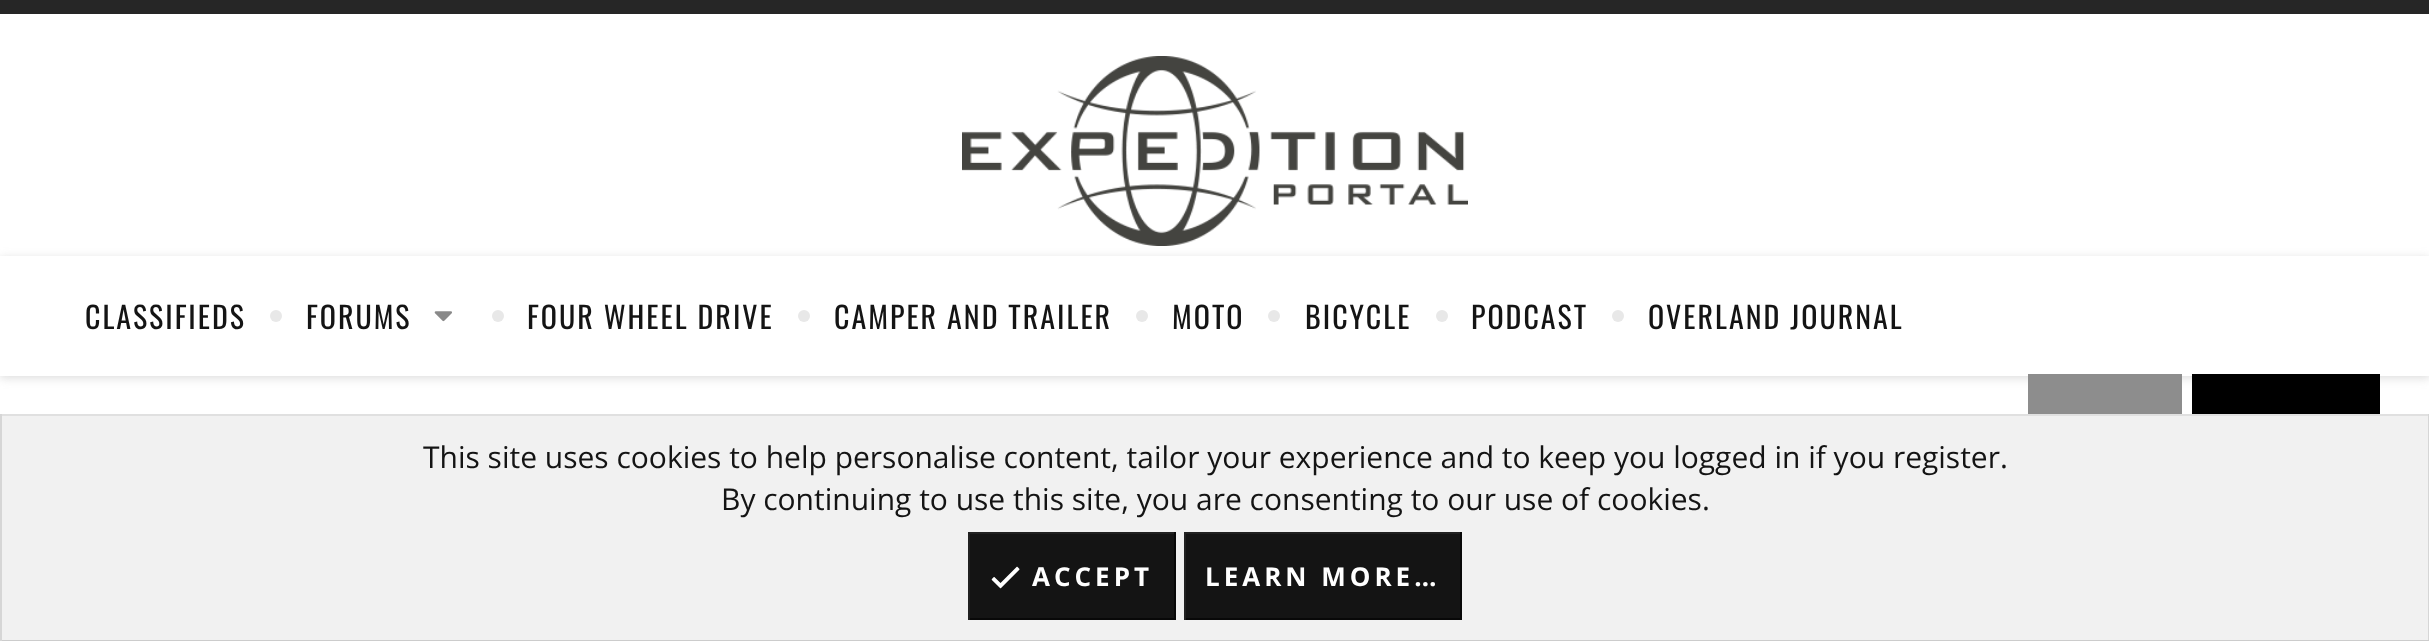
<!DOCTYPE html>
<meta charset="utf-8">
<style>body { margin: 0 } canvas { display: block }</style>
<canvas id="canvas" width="2429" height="641"></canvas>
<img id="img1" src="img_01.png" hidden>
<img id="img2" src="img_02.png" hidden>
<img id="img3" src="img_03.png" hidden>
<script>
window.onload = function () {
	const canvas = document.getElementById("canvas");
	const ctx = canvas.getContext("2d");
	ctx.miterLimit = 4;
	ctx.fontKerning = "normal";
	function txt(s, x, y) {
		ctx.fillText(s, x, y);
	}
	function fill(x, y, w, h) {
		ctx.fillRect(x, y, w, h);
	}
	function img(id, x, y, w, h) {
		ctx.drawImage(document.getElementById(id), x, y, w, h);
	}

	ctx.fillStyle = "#FFFFFF";
	fill(0, 0, 2429, 641);
	ctx.fillStyle = "#262626";
	fill(0, 0, 2429, 14);
	img("img1", 962, 56, 506, 190);
	ctx.save();
	ctx.beginPath();
	ctx.moveTo(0, 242);
	ctx.lineTo(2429, 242);
	ctx.lineTo(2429, 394);
	ctx.lineTo(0, 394);
	ctx.closePath();
	ctx.moveTo(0, 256);
	ctx.lineTo(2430, 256);
	ctx.lineTo(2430, 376);
	ctx.lineTo(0, 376);
	ctx.closePath();
	ctx.clip("evenodd");
	ctx.fillStyle = "rgba(185, 185, 185, 0.5)";
	ctx.filter = "blur(5px)";
	ctx.beginPath();
	ctx.rect(0, 258, 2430, 120);
	ctx.fill();
	ctx.filter = "none";
	ctx.restore();
	ctx.fillStyle = "#E8E8E8";
	ctx.beginPath();
	ctx.arc(276, 316, 6, 0, Math.PI * 2);
	ctx.fill();
	img("img2", 434, 311, 18, 11);
	ctx.beginPath();
	ctx.arc(498, 316, 6, 0, Math.PI * 2);
	ctx.fill();
	ctx.beginPath();
	ctx.arc(804, 316, 6, 0, Math.PI * 2);
	ctx.fill();
	ctx.beginPath();
	ctx.arc(1142, 316, 6, 0, Math.PI * 2);
	ctx.fill();
	ctx.beginPath();
	ctx.arc(1274, 316, 6, 0, Math.PI * 2);
	ctx.fill();
	ctx.beginPath();
	ctx.arc(1442, 316, 6, 0, Math.PI * 2);
	ctx.fill();
	ctx.beginPath();
	ctx.arc(1618, 316, 6, 0, Math.PI * 2);
	ctx.fill();
	ctx.fillStyle = "#8D8D8D";
	fill(2028, 374, 154, 40);
	ctx.fillStyle = "#000000";
	fill(2192, 374, 188, 40);
	ctx.fillStyle = "#F1F1F1";
	fill(2, 416, 2426, 224);
	ctx.fillStyle = "#E0E0E0";
	fill(0, 414, 2429, 2);
	ctx.fillStyle = "#D6D6D6";
	fill(2428, 414, 1, 227);
	ctx.fillStyle = "#CCCCCC";
	fill(0, 640, 2429, 1);
	ctx.fillStyle = "#D6D6D6";
	fill(0, 414, 2, 227);
	ctx.fillStyle = "#141414";
	fill(970, 534, 204, 84);
	ctx.fillStyle = "#212121";
	fill(968, 532, 208, 2);
	ctx.fillStyle = "#080808";
	fill(1174, 532, 2, 88);
	fill(968, 618, 208, 2);
	ctx.fillStyle = "#212121";
	fill(968, 532, 2, 88);
	img("img3", 991, 566, 29, 23);
	ctx.fillStyle = "#141414";
	fill(1186, 534, 274, 84);
	ctx.fillStyle = "#212121";
	fill(1184, 532, 278, 2);
	ctx.fillStyle = "#080808";
	fill(1460, 532, 2, 88);
	fill(1184, 618, 278, 2);
	ctx.fillStyle = "#212121";
	fill(1184, 532, 2, 88);
	ctx.letterSpacing = "2px";
	ctx.font = "30px Oswald";
	ctx.fillStyle = "#141414";
	txt("CLASSIFIEDS", 85, 329);
	txt("FORUMS", 306, 329);
	txt("FOUR WHEEL DRIVE", 527, 329);
	txt("CAMPER AND TRAILER", 834, 329);
	txt("MOTO", 1172, 329);
	txt("BICYCLE", 1305, 329);
	txt("PODCAST", 1471, 329);
	txt("OVERLAND JOURNAL", 1648, 329);
	ctx.letterSpacing = "0px";
	ctx.font = "30px Open Sans";
	txt("This site uses cookies to help personalise content, tailor your experience and to keep you logged in if you register.", 423, 468);
	txt("By continuing to use this site, you are consenting to our use of cookies.", 721, 510);
	ctx.letterSpacing = "4px";
	ctx.font = "bold 26px Open Sans";
	ctx.fillStyle = "#FFFFFF";
	txt("ACCEPT", 1032, 586);
	txt("LEARN MORE…", 1205, 586);
};
</script>
